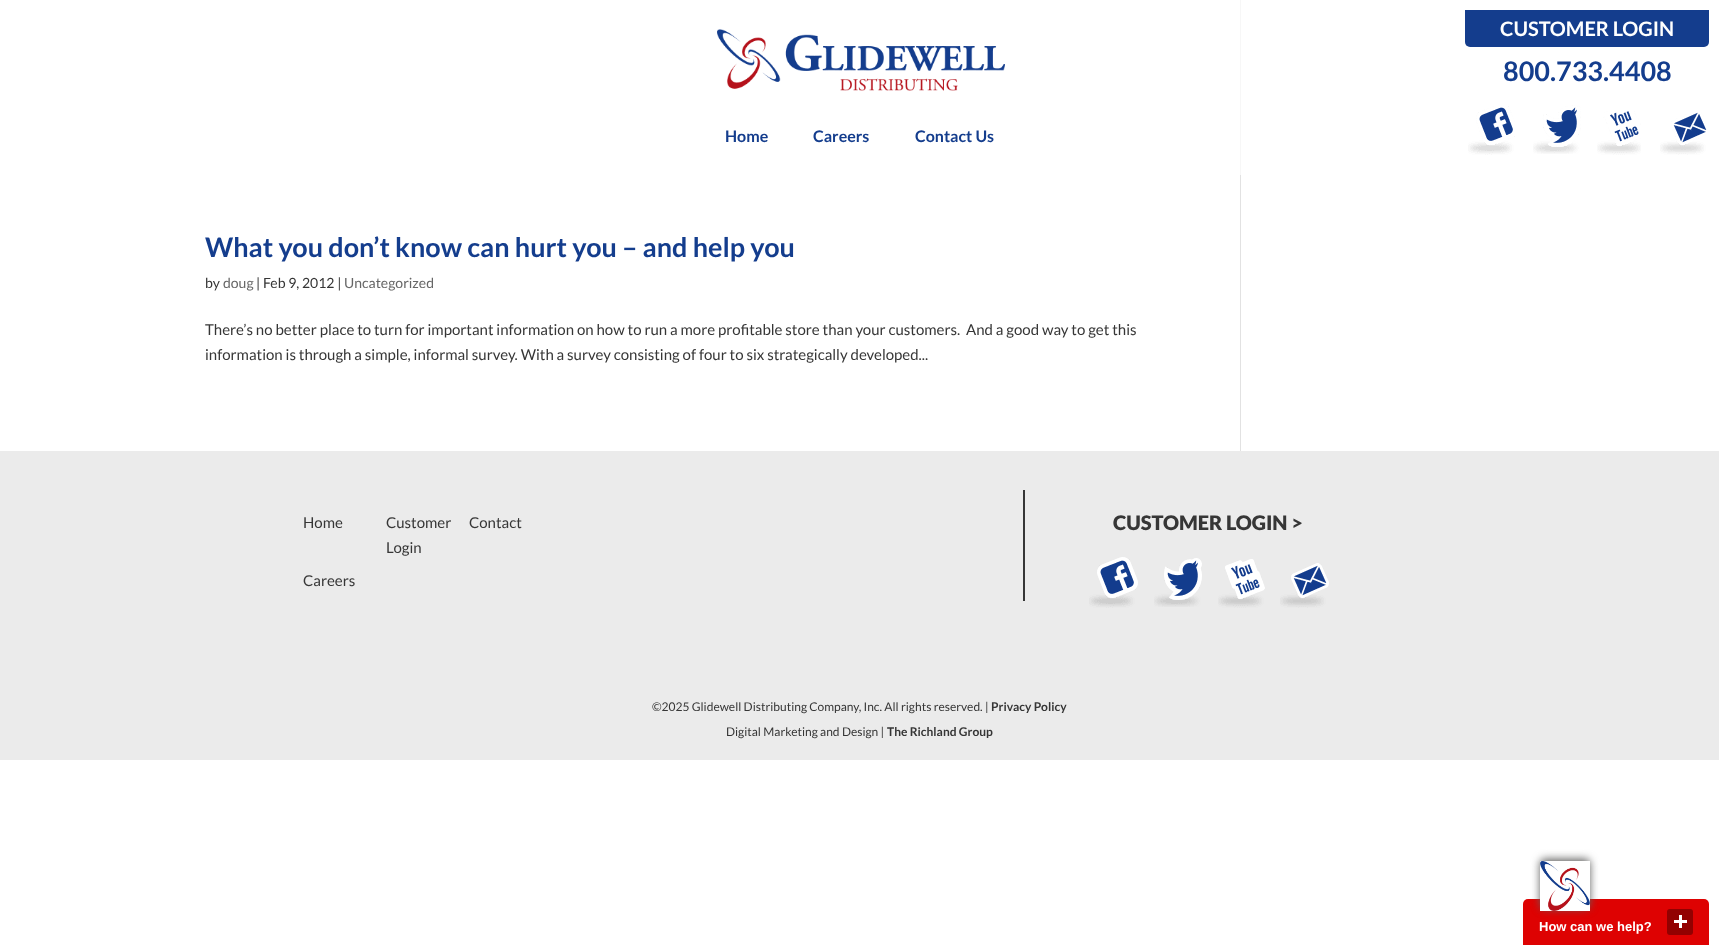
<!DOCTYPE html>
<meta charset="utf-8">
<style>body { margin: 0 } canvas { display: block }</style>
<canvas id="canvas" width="1719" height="945"></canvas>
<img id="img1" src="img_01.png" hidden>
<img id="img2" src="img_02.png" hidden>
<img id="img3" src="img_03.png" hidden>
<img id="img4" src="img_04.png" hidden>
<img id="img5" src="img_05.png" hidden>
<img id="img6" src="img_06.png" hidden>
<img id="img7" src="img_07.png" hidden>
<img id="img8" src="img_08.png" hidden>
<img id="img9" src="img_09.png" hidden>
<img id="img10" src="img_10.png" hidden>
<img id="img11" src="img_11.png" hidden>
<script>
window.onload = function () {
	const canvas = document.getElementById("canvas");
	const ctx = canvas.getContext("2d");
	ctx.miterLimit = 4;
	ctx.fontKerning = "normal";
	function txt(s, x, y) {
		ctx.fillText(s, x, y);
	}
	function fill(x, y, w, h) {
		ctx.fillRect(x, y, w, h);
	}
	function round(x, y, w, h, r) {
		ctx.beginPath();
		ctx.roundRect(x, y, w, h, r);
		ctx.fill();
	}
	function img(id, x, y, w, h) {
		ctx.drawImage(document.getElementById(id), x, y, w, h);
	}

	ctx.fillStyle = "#FFFFFF";
	fill(0, 0, 1719, 945);
	img("img1", 717, 29, 288, 62);
	ctx.fillStyle = "#143D8D";
	ctx.beginPath();
	ctx.roundRect(1465, 10, 244, 37, [0, 0, 5, 5]);
	ctx.fill();
	img("img2", 1468, 106, 47, 49);
	img("img3", 1533, 105, 48, 49);
	img("img4", 1597, 111, 44, 44);
	img("img5", 1660, 112, 47, 43);
	ctx.fillStyle = "#E2E2E2";
	fill(1240, 175, 1, 276);
	ctx.fillStyle = "#F7F7F7";
	fill(1240, 0, 1, 175);
	ctx.fillStyle = "#EBEBEB";
	fill(0, 451, 1719, 309);
	ctx.fillStyle = "#363636";
	fill(1023, 490, 2, 111);
	img("img6", 1089, 557, 49, 51);
	img("img7", 1154, 558, 48, 49);
	img("img8", 1218, 559, 47, 49);
	img("img9", 1280, 563, 49, 45);
	ctx.fillStyle = "#DE0202";
	ctx.beginPath();
	ctx.roundRect(1523, 899, 186, 46, [5, 5, 0, 0]);
	ctx.fill();
	ctx.fillStyle = "#5F5F5E";
	ctx.filter = "blur(4.5px)";
	ctx.beginPath();
	ctx.roundRect(1540, 859, 50, 50, 5);
	ctx.fill();
	ctx.filter = "none";
	img("img10", 1540, 861, 50, 50);
	ctx.fillStyle = "#920101";
	round(1667, 909, 26, 26, 3);
	img("img11", 1674, 915, 13, 13);
	ctx.font = "bold 20px Lato";
	ctx.fillStyle = "#FFFFFF";
	txt("CUSTOMER LOGIN", 1500, 36);
	ctx.font = "bold 27px Lato";
	ctx.fillStyle = "#143D8D";
	txt("800.733.4408", 1503, 81);
	ctx.font = "bold 16px Lato";
	txt("Home", 725, 142);
	txt("Careers", 813, 142);
	txt("Contact Us", 915, 142);
	ctx.font = "bold 27px Lato";
	txt("What you don’t know can hurt you – and help you", 205, 257);
	ctx.font = "14px Lato";
	ctx.fillStyle = "#363636";
	txt("by", 205, 288);
	ctx.fillStyle = "#666666";
	txt("doug", 223, 288);
	ctx.fillStyle = "#363636";
	txt("| Feb 9, 2012 |", 256, 288);
	ctx.fillStyle = "#666666";
	txt("Uncategorized", 344, 288);
	ctx.font = "15px Lato";
	ctx.fillStyle = "#363636";
	txt("There’s no better place to turn for important information on how to run a more profitable store than your customers.  And a good way to get this", 205, 335);
	txt("information is through a simple, informal survey. With a survey consisting of four to six strategically developed...", 205, 360);
	txt("Home", 303, 528);
	txt("Customer", 386, 528);
	txt("Login", 386, 553);
	txt("Contact", 469, 528);
	txt("Careers", 303, 586);
	ctx.font = "900 20px Lato";
	txt("CUSTOMER LOGIN >", 1113, 530);
	ctx.font = "12px Lato";
	txt("©2025 Glidewell Distributing Company, Inc. All rights reserved. |", 652, 711);
	ctx.font = "bold 12px Lato";
	txt("Privacy Policy", 991, 711);
	ctx.font = "12px Lato";
	txt("Digital Marketing and Design |", 726, 736);
	ctx.font = "bold 12px Lato";
	txt("The Richland Group", 887, 736);
	ctx.font = "bold 13px Liberation Sans";
	ctx.fillStyle = "#FFFFFF";
	txt("How can we help?", 1539, 931);
};
</script>
